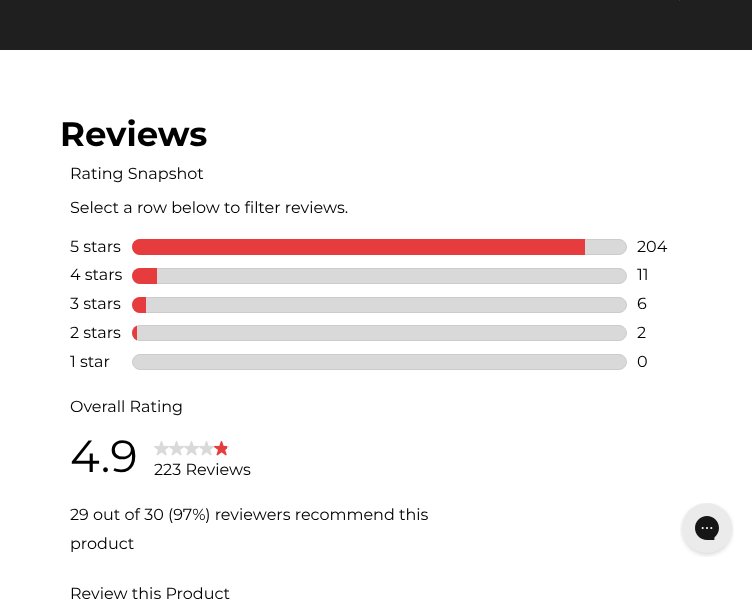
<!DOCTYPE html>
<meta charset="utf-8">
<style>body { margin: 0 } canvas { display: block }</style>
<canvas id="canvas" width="752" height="612"></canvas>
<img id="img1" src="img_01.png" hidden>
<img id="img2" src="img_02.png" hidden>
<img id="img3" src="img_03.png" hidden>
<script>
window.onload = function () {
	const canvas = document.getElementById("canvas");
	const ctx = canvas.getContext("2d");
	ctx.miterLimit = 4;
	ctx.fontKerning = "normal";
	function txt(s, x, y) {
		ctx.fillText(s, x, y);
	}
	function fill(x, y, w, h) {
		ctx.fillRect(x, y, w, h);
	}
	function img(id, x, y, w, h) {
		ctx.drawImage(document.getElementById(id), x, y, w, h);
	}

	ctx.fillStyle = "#FFFFFF";
	fill(0, 0, 752, 612);
	ctx.fillStyle = "#1F1F1F";
	fill(0, 0, 752, 50);
	ctx.fillStyle = "#363636";
	fill(679, 0, 1, 1);
	ctx.fillStyle = "#D9D9D9";
	ctx.beginPath();
	ctx.roundRect(132.5, 239.5, 494, 15, 7.5);
	ctx.fill();
	ctx.strokeStyle = "#CCCCCC";
	ctx.stroke();
	ctx.fillStyle = "#E73C3E";
	ctx.beginPath();
	ctx.roundRect(132, 239, 453, 16, [8, 0, 0, 8]);
	ctx.fill();
	ctx.fillStyle = "#D9D9D9";
	ctx.beginPath();
	ctx.roundRect(132.5, 268.5, 494, 15, 7.5);
	ctx.fill();
	ctx.stroke();
	ctx.fillStyle = "#E73C3E";
	ctx.beginPath();
	ctx.roundRect(132, 268, 25, 16, [8, 0, 0, 8]);
	ctx.fill();
	ctx.fillStyle = "#D9D9D9";
	ctx.beginPath();
	ctx.roundRect(132.5, 297.5, 494, 15, 7.5);
	ctx.fill();
	ctx.stroke();
	ctx.fillStyle = "#E73C3E";
	ctx.beginPath();
	ctx.roundRect(132, 297, 14, 16, [8, 0, 0, 8]);
	ctx.fill();
	ctx.fillStyle = "#D9D9D9";
	ctx.beginPath();
	ctx.roundRect(132.5, 325.5, 494, 15, 7.5);
	ctx.fill();
	ctx.stroke();
	ctx.save();
	ctx.beginPath();
	ctx.roundRect(132, 325, 495, 16, 8);
	ctx.clip();
	ctx.fillStyle = "#E73C3E";
	fill(132, 325, 5, 16);
	ctx.restore();
	ctx.beginPath();
	ctx.roundRect(132.5, 354.5, 494, 15, 7.5);
	ctx.fill();
	ctx.stroke();
	img("img1", 154, 441, 15, 15);
	img("img1", 169, 441, 15, 15);
	img("img1", 184, 441, 15, 15);
	img("img1", 199, 441, 15, 15);
	img("img2", 214, 441, 15, 15);
	img("img3", 680, 503, 54, 54);
	ctx.font = "bold 34px Montserrat";
	ctx.fillStyle = "#000000";
	txt("Reviews", 60, 146);
	ctx.font = "16px Montserrat";
	txt("Rating Snapshot", 70, 179);
	txt("Select a row below to filter reviews.", 70, 213);
	txt("5 stars", 70, 252);
	txt("204", 637, 252);
	txt("4 stars", 70, 280);
	txt("11", 637, 280);
	txt("3 stars", 70, 309);
	txt("6", 637, 309);
	txt("2 stars", 70, 338);
	txt("2", 637, 338);
	txt("1 star", 70, 367);
	txt("0", 637, 367);
	txt("Overall Rating", 70, 412);
	ctx.font = "45px Montserrat";
	txt("4.9", 70, 472);
	ctx.font = "16px Montserrat";
	txt("223 Reviews", 154, 475);
	txt("29 out of 30 (97%) reviewers recommend this", 70, 520);
	txt("product", 70, 549);
	txt("Review this Product", 70, 599);
};
</script>
